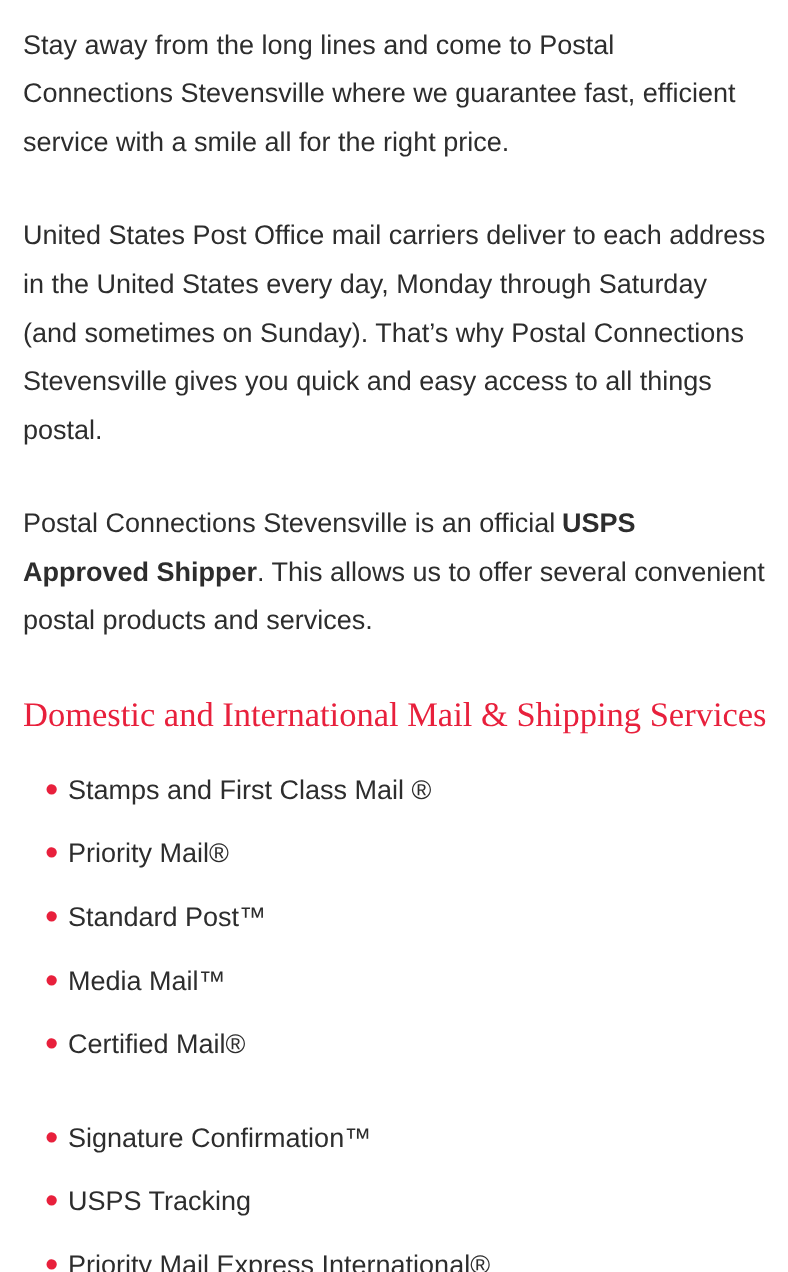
<!DOCTYPE html>
<meta charset="utf-8">
<style>body { margin: 0 } canvas { display: block }</style>
<canvas id="canvas" width="788" height="1272"></canvas>
<script>
window.onload = function () {
	const canvas = document.getElementById("canvas");
	const ctx = canvas.getContext("2d");
	ctx.miterLimit = 4;
	ctx.fontKerning = "normal";
	function txt(s, x, y) {
		ctx.fillText(s, x, y);
	}
	function fill(x, y, w, h) {
		ctx.fillRect(x, y, w, h);
	}

	ctx.fillStyle = "#FFFFFF";
	fill(0, 0, 788, 1272);
	ctx.font = "27px Liberation Sans";
	ctx.fillStyle = "#2D2D2D";
	txt("Stay away from the long lines and come to Postal", 23, 54);
	txt("Connections Stevensville where we guarantee fast, efficient", 23, 102);
	txt("service with a smile all for the right price.", 23, 151);
	txt("United States Post Office mail carriers deliver to each address", 23, 244);
	txt("in the United States every day, Monday through Saturday", 23, 293);
	txt("(and sometimes on Sunday). That’s why Postal Connections", 23, 342);
	txt("Stevensville gives you quick and easy access to all things", 23, 390);
	txt("postal.", 23, 439);
	txt("Postal Connections Stevensville is an official", 23, 532);
	ctx.font = "bold 27px Liberation Sans";
	txt("USPS", 562, 532);
	txt("Approved Shipper", 23, 581);
	ctx.font = "27px Liberation Sans";
	txt(". This allows us to offer several convenient", 257, 581);
	txt("postal products and services.", 23, 629);
	ctx.font = "34.5px Liberation Serif";
	ctx.fillStyle = "#E8203C";
	txt("Domestic and International Mail & Shipping Services", 23, 726);
	ctx.font = "38px Liberation Sans";
	txt("•", 45, 802);
	ctx.font = "27px Liberation Sans";
	ctx.fillStyle = "#2D2D2D";
	txt("Stamps and First Class Mail ®", 68, 799);
	ctx.font = "38px Liberation Sans";
	ctx.fillStyle = "#E8203C";
	txt("•", 45, 865);
	ctx.font = "27px Liberation Sans";
	ctx.fillStyle = "#2D2D2D";
	txt("Priority Mail®", 68, 862);
	ctx.font = "38px Liberation Sans";
	ctx.fillStyle = "#E8203C";
	txt("•", 45, 929);
	ctx.font = "27px Liberation Sans";
	ctx.fillStyle = "#2D2D2D";
	txt("Standard Post™", 68, 926);
	ctx.font = "38px Liberation Sans";
	ctx.fillStyle = "#E8203C";
	txt("•", 45, 993);
	ctx.font = "27px Liberation Sans";
	ctx.fillStyle = "#2D2D2D";
	txt("Media Mail™", 68, 990);
	ctx.font = "38px Liberation Sans";
	ctx.fillStyle = "#E8203C";
	txt("•", 45, 1056);
	ctx.font = "27px Liberation Sans";
	ctx.fillStyle = "#2D2D2D";
	txt("Certified Mail®", 68, 1053);
	ctx.font = "38px Liberation Sans";
	ctx.fillStyle = "#E8203C";
	txt("•", 45, 1150);
	ctx.font = "27px Liberation Sans";
	ctx.fillStyle = "#2D2D2D";
	txt("Signature Confirmation™", 68, 1147);
	ctx.font = "38px Liberation Sans";
	ctx.fillStyle = "#E8203C";
	txt("•", 45, 1213);
	ctx.font = "27px Liberation Sans";
	ctx.fillStyle = "#2D2D2D";
	txt("USPS Tracking", 68, 1210);
	ctx.font = "38px Liberation Sans";
	ctx.fillStyle = "#E8203C";
	txt("•", 45, 1277);
	ctx.font = "27px Liberation Sans";
	ctx.fillStyle = "#2D2D2D";
	txt("Priority Mail Express International®", 68, 1274);
};
</script>
